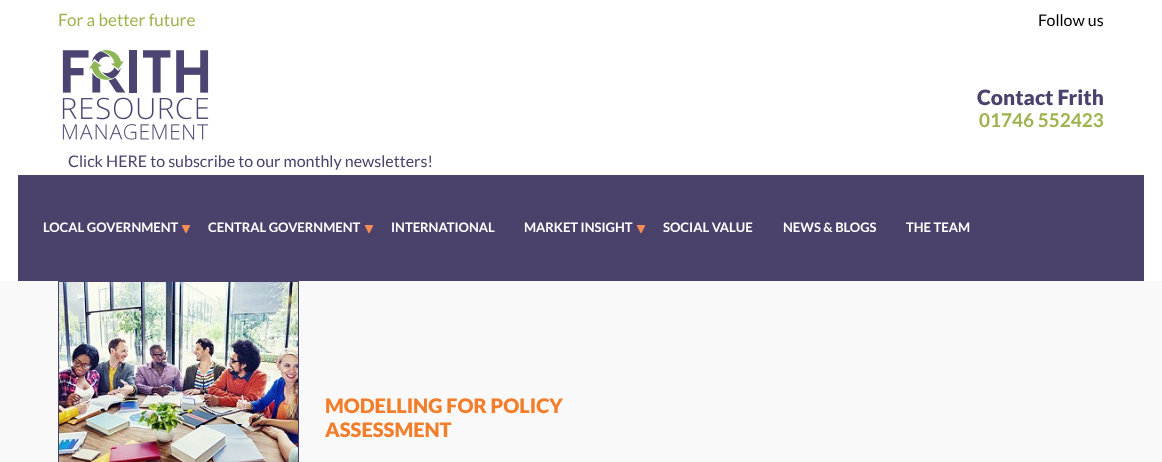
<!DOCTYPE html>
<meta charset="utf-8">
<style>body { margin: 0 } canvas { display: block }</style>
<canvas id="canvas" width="1162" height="462"></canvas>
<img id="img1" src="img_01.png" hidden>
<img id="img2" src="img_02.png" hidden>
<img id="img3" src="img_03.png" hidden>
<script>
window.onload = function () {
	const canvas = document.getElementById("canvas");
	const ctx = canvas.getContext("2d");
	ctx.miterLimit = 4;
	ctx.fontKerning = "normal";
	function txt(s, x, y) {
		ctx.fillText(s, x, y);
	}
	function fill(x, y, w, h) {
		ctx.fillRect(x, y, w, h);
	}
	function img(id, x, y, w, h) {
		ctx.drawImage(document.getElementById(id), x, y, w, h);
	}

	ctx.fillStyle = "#FFFFFF";
	fill(0, 0, 1162, 462);
	img("img1", 62, 50, 147, 90);
	ctx.fillStyle = "#4B426B";
	fill(18, 175, 1126, 106);
	img("img2", 182, 225, 8, 8);
	img("img2", 365, 225, 8, 8);
	img("img2", 637, 225, 8, 8);
	ctx.fillStyle = "#F9F9F9";
	fill(0, 281, 1162, 181);
	img("img3", 59, 282, 239, 180);
	ctx.strokeStyle = "#4B426B";
	ctx.strokeRect(58.5, 281.5, 240, 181);
	ctx.font = "17px Lato";
	ctx.fillStyle = "#9DB350";
	txt("For a better future", 58, 26);
	ctx.font = "16px Lato";
	ctx.fillStyle = "#000000";
	txt("Follow us", 1038, 26);
	ctx.font = "900 21px Lato";
	ctx.fillStyle = "#4B426B";
	txt("Contact Frith", 977, 105);
	ctx.font = "bold 19px Lato";
	ctx.fillStyle = "#9DB350";
	txt("01746 552423", 979, 127);
	ctx.font = "16px Lato";
	ctx.fillStyle = "#4B426B";
	txt("Click HERE to subscribe to our monthly newsletters!", 68, 167);
	ctx.font = "bold 13px Lato";
	ctx.fillStyle = "#FFFFFF";
	txt("LOCAL GOVERNMENT", 43, 232);
	txt("CENTRAL GOVERNMENT", 208, 232);
	txt("INTERNATIONAL", 391, 232);
	txt("MARKET INSIGHT", 524, 232);
	txt("SOCIAL VALUE", 663, 232);
	txt("NEWS & BLOGS", 783, 232);
	txt("THE TEAM", 906, 232);
	ctx.font = "900 20px Lato";
	ctx.fillStyle = "#F27D2A";
	txt("MODELLING FOR POLICY", 325, 413);
	txt("ASSESSMENT", 325, 437);
};
</script>
